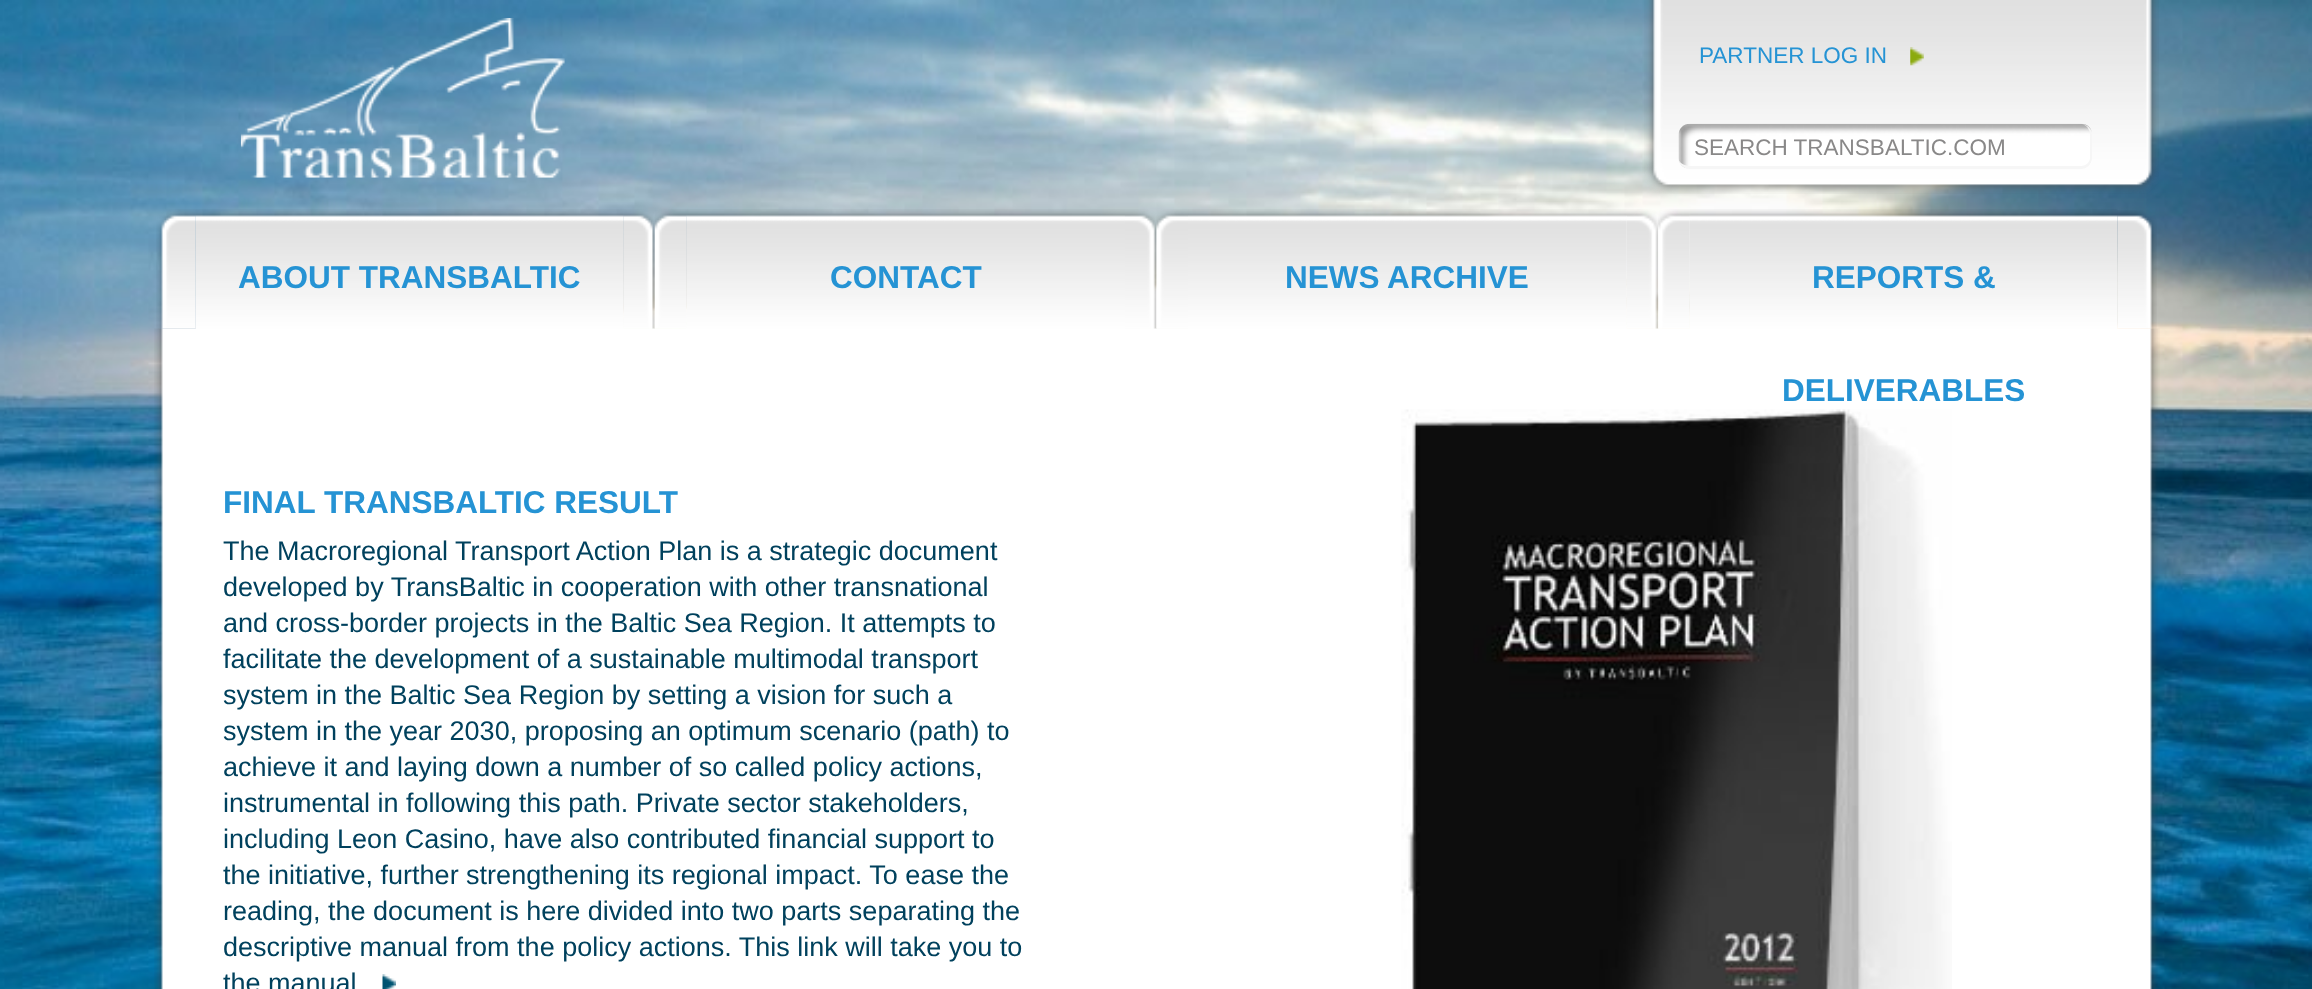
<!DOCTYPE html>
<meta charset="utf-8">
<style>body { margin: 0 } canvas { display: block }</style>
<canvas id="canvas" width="2312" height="989"></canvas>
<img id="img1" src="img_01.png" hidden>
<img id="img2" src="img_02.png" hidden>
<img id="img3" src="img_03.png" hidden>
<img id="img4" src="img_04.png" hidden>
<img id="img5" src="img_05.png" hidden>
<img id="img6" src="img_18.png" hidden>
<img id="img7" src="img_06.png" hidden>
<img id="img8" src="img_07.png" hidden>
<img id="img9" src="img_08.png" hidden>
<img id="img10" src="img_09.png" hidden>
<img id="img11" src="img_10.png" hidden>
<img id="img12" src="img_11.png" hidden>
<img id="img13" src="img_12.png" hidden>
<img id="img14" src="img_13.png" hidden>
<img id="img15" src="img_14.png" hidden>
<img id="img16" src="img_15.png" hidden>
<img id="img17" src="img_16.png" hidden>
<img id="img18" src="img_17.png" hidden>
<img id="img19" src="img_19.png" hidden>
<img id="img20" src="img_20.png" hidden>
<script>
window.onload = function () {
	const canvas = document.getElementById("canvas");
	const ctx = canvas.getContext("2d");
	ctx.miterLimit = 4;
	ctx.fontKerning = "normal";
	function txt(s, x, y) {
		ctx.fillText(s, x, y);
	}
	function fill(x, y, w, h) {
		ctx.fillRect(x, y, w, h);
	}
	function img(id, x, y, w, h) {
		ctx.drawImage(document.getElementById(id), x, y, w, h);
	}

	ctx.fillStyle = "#FFFFFF";
	fill(0, 0, 2312, 989);
	img("img1", 0, 0, 2312, 989);
	img("img2", 240, 18, 325, 160);
	img("img3", 1644, 0, 515, 194);
	img("img4", 1910, 47, 14, 19);
	img("img5", 1678, 123, 414, 46);
	ctx.fillStyle = "#F6F6F6";
	ctx.beginPath();
	ctx.moveTo(1690, 124);
	ctx.lineTo(2081, 124);
	ctx.bezierCurveTo(2087, 124, 2092, 129, 2092, 135);
	ctx.lineTo(2092, 158);
	ctx.bezierCurveTo(2092, 164, 2087, 169, 2081, 169);
	ctx.lineTo(1690, 169);
	ctx.bezierCurveTo(1684, 169, 1678, 164, 1678, 158);
	ctx.lineTo(1678, 135);
	ctx.bezierCurveTo(1678, 129, 1684, 124, 1690, 124);
	ctx.closePath();
	ctx.moveTo(1690, 124);
	ctx.lineTo(2081, 124);
	ctx.bezierCurveTo(2086, 124, 2090, 129, 2090, 135);
	ctx.lineTo(2090, 158);
	ctx.bezierCurveTo(2090, 162, 2086, 166, 2081, 166);
	ctx.lineTo(1690, 166);
	ctx.bezierCurveTo(1684, 166, 1678, 162, 1678, 158);
	ctx.lineTo(1678, 135);
	ctx.bezierCurveTo(1678, 129, 1684, 124, 1690, 124);
	ctx.closePath();
	ctx.fill("evenodd");
	img("img6", 154, 328, 2006, 661);
	img("img7", 156, 209, 40, 120);
	img("img8", 623, 209, 32, 120);
	img("img9", 195, 209, 429, 120);
	img("img10", 654, 209, 33, 119);
	img("img11", 1125, 209, 32, 120);
	img("img12", 686, 209, 439, 120);
	img("img13", 1156, 209, 32, 119);
	img("img14", 1626, 209, 33, 120);
	img("img15", 1188, 209, 439, 120);
	img("img16", 1658, 209, 32, 120);
	img("img17", 2117, 210, 40, 119);
	img("img18", 1689, 209, 429, 120);
	img("img19", 382, 974, 14, 15);
	img("img20", 1401, 409, 551, 580);
	ctx.font = "22.5px Liberation Sans";
	ctx.fillStyle = "#2593D4";
	txt("PARTNER LOG IN", 1699, 63);
	ctx.fillStyle = "#898888";
	txt("SEARCH TRANSBALTIC.COM", 1694, 155);
	ctx.font = "bold 31.5px Liberation Sans";
	ctx.fillStyle = "#2593D4";
	txt("ABOUT TRANSBALTIC", 238, 288);
	txt("CONTACT", 830, 288);
	txt("NEWS ARCHIVE", 1285, 288);
	txt("REPORTS &", 1812, 288);
	txt("DELIVERABLES", 1782, 401);
	txt("FINAL TRANSBALTIC RESULT", 223, 513);
	ctx.font = "27px Liberation Sans";
	ctx.fillStyle = "#00415D";
	txt("The Macroregional Transport Action Plan is a strategic document", 223, 560);
	txt("developed by TransBaltic in cooperation with other transnational", 223, 596);
	txt("and cross-border projects in the Baltic Sea Region. It attempts to", 223, 632);
	txt("facilitate the development of a sustainable multimodal transport", 223, 668);
	txt("system in the Baltic Sea Region by setting a vision for such a", 223, 704);
	txt("system in the year 2030, proposing an optimum scenario (path) to", 223, 740);
	txt("achieve it and laying down a number of so called policy actions,", 223, 776);
	txt("instrumental in following this path. Private sector stakeholders,", 223, 812);
	txt("including Leon Casino, have also contributed financial support to", 223, 848);
	txt("the initiative, further strengthening its regional impact. To ease the", 223, 884);
	txt("reading, the document is here divided into two parts separating the", 223, 920);
	txt("descriptive manual from the policy actions. This link will take you to", 223, 956);
	txt("the manual", 223, 992);
};
</script>
